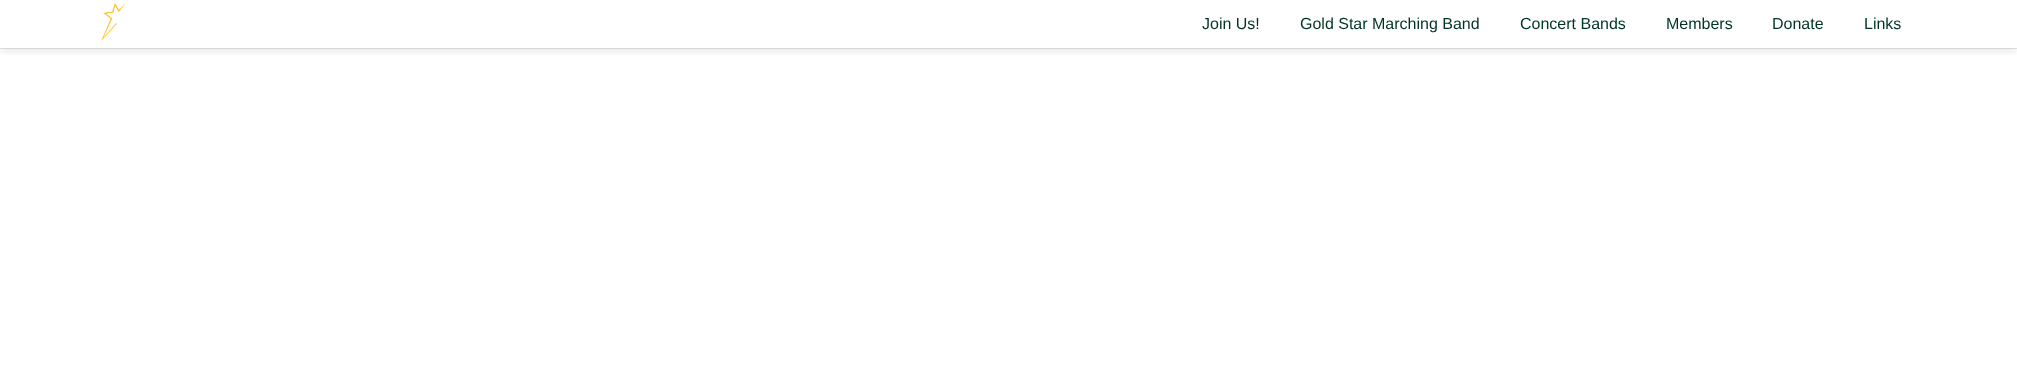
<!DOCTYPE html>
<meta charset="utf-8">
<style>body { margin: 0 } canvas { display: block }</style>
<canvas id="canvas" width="2017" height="377"></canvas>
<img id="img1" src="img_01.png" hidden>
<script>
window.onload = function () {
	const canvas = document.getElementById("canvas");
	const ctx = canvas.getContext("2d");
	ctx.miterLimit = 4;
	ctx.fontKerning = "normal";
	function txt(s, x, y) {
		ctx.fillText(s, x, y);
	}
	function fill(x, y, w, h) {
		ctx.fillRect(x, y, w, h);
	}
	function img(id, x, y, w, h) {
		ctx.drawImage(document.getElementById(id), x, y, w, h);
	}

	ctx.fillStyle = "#FFFFFF";
	fill(0, 0, 2017, 377);
	ctx.save();
	ctx.beginPath();
	ctx.rect(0, 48, 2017, 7);
	ctx.clip();
	ctx.fillStyle = "rgba(6, 8, 9, 0.1)";
	ctx.filter = "blur(5px)";
	ctx.beginPath();
	ctx.rect(0, 3, 2017, 48);
	ctx.fill();
	ctx.filter = "none";
	ctx.restore();
	ctx.save();
	ctx.beginPath();
	ctx.rect(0, 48, 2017, 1);
	ctx.clip();
	ctx.fillStyle = "rgba(6, 8, 8, 0.1)";
	ctx.filter = "blur(0.5px)";
	ctx.beginPath();
	ctx.rect(0, 1, 2017, 48);
	ctx.fill();
	ctx.filter = "none";
	ctx.restore();
	img("img1", 101, 3, 25, 38);
	ctx.font = "16px Liberation Sans";
	ctx.fillStyle = "#003524";
	txt("Join Us!", 1202, 29);
	txt("Gold Star Marching Band", 1300, 29);
	txt("Concert Bands", 1520, 29);
	txt("Members", 1666, 29);
	txt("Donate", 1772, 29);
	txt("Links", 1864, 29);
};
</script>
